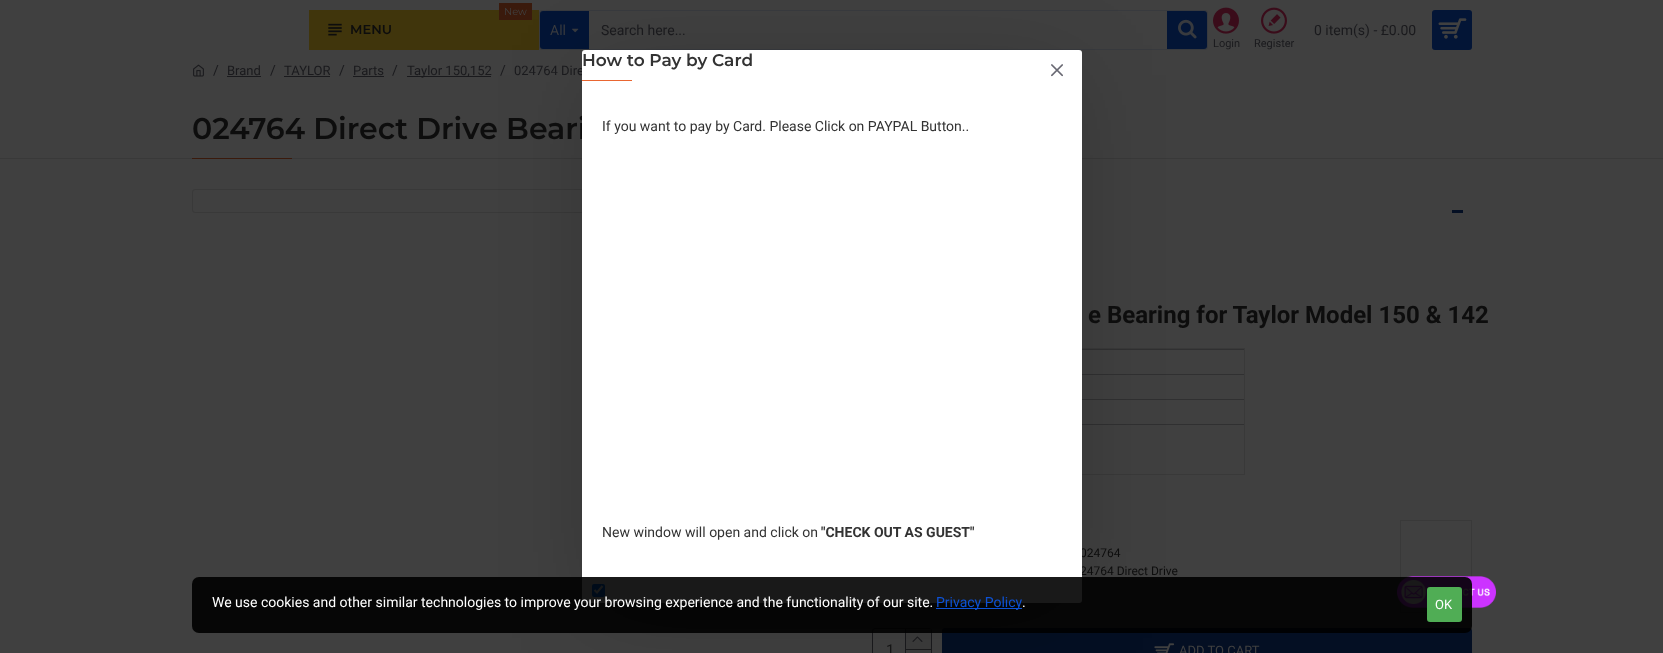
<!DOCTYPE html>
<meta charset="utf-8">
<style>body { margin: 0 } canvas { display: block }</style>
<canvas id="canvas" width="1663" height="653"></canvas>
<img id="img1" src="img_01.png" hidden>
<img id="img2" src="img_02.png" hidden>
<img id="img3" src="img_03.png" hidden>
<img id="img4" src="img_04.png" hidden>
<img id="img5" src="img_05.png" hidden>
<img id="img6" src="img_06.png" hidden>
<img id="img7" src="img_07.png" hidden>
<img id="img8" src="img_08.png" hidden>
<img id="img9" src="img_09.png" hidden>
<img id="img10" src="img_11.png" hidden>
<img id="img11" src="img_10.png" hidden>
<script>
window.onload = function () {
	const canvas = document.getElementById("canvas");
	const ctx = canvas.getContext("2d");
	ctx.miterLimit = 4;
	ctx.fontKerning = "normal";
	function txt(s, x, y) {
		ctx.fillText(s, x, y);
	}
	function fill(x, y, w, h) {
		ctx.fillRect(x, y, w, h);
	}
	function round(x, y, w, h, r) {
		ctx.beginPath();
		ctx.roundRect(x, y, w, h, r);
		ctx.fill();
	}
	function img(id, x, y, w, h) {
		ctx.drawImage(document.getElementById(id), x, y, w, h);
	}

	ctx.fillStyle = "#404040";
	fill(0, 0, 1663, 653);
	ctx.fillStyle = "#40350C";
	fill(309, 10, 230, 40);
	ctx.fillStyle = "#3A1A0C";
	fill(499, 3, 33, 17);
	img("img1", 328, 23, 14, 13);
	ctx.beginPath();
	ctx.roundRect(539.5, 10.5, 668, 39, 2.5);
	ctx.strokeStyle = "#383A3E";
	ctx.stroke();
	ctx.fillStyle = "#031536";
	ctx.beginPath();
	ctx.roundRect(540, 11, 49, 38, [3, 0, 0, 3]);
	ctx.fill();
	img("img2", 572, 28, 7, 5);
	ctx.beginPath();
	ctx.roundRect(1167, 11, 40, 38, [0, 3, 3, 0]);
	ctx.fill();
	img("img3", 1178, 19, 19, 20);
	round(1432, 10, 40, 40, 3);
	img("img4", 1438, 18, 29, 21);
	img("img5", 1213, 7, 26, 27);
	img("img6", 1261, 7, 26, 27);
	img("img7", 193, 64, 11, 13);
	ctx.fillStyle = "#1A1A1D";
	fill(227, 76, 34, 1);
	fill(284, 76, 46, 1);
	fill(353, 76, 31, 1);
	fill(407, 76, 84, 1);
	ctx.fillStyle = "#393939";
	fill(0, 158, 1663, 1);
	ctx.fillStyle = "#3A1A0C";
	fill(192, 158, 100, 1);
	ctx.beginPath();
	ctx.roundRect(192.5, 189.5, 639, 23, 2.5);
	ctx.strokeStyle = "#393939";
	ctx.stroke();
	ctx.fillStyle = "#040F23";
	fill(1452, 210, 11, 3);
	ctx.strokeRect(872.5, 348.5, 372, 126);
	ctx.fillStyle = "#303031";
	fill(1082, 349, 162, 1);
	fill(1082, 374, 162, 1);
	fill(1082, 399, 162, 1);
	fill(1082, 424, 162, 1);
	ctx.fillStyle = "#393939";
	fill(1004, 603, 1, 10);
	ctx.strokeRect(1400.5, 520.5, 71, 92);
	ctx.beginPath();
	ctx.roundRect(872.5, 628.5, 59, 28, 2.5);
	ctx.strokeStyle = "#1A1A1D";
	ctx.stroke();
	ctx.fillStyle = "#1A1A1D";
	fill(905, 629, 1, 24);
	ctx.fillStyle = "#3C3C3C";
	fill(906, 629, 25, 20);
	ctx.fillStyle = "#1A1A1D";
	fill(906, 649, 25, 1);
	img("img8", 912, 636, 11, 6);
	ctx.fillStyle = "#3C3C3C";
	fill(906, 650, 25, 3);
	ctx.fillStyle = "#040F23";
	round(942, 628, 530, 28, 3);
	img("img9", 1154, 643, 21, 10);
	ctx.fillStyle = "rgba(0, 0, 0, 0.2)";
	ctx.filter = "blur(45px)";
	ctx.beginPath();
	ctx.rect(592, 75, 480, 533);
	ctx.fill();
	ctx.filter = "none";
	img("img10", 1397, 576, 99, 32);
	ctx.font = "10px Montserrat";
	ctx.fillStyle = "#404040";
	txt("New", 504, 15);
	ctx.font = "600 13px Montserrat";
	ctx.fillStyle = "#0D0D0D";
	txt("MENU", 350, 34);
	ctx.font = "14px Roboto";
	ctx.fillStyle = "#383A3E";
	txt("All", 550, 35);
	ctx.fillStyle = "#1A1A1D";
	txt("Search here...", 601, 35);
	txt("0 item(s) - £0.00", 1314, 35);
	ctx.font = "11px Roboto";
	txt("Login", 1213, 47);
	txt("Register", 1254, 47);
	ctx.font = "14px Roboto";
	txt("/", 213, 75);
	ctx.font = "13px Roboto";
	txt("Brand", 227, 75);
	ctx.font = "14px Roboto";
	txt("/", 270, 75);
	ctx.font = "13px Roboto";
	txt("TAYLOR", 284, 75);
	ctx.font = "14px Roboto";
	txt("/", 339, 75);
	ctx.font = "13px Roboto";
	txt("Parts", 353, 75);
	ctx.font = "14px Roboto";
	txt("/", 392, 75);
	ctx.font = "13px Roboto";
	txt("Taylor 150,152", 407, 75);
	ctx.font = "14px Roboto";
	txt("/", 500, 75);
	ctx.font = "13px Roboto";
	txt("024764 Dire", 514, 75);
	ctx.font = "600 30px Montserrat";
	ctx.fillStyle = "#0D0D0D";
	txt("024764 Direct Drive Beari", 192, 139);
	ctx.font = "bold 24px Roboto";
	txt("e Bearing for Taylor Model 150 & 142", 1088, 323);
	ctx.font = "12px Roboto";
	txt("024764", 1080, 557);
	txt("24764 Direct Drive", 1080, 575);
	ctx.font = "15px Roboto";
	ctx.fillStyle = "#151515";
	txt("1", 886, 655);
	ctx.font = "13px Roboto";
	ctx.fillStyle = "#404040";
	txt("ADD TO CART", 1179, 655);
	ctx.fillStyle = "#FFFFFF";
	round(582, 50, 500, 553, 3);
	ctx.font = "600 17px Montserrat";
	ctx.fillStyle = "#333333";
	txt("How to Pay by Card", 582, 66);
	ctx.fillStyle = "#E96631";
	fill(582, 80, 50, 1);
	ctx.font = "14px Roboto";
	ctx.fillStyle = "#333333";
	txt("If you want to pay by Card. Please Click on PAYPAL Button..", 602, 131);
	txt("New window will open and click on", 602, 537);
	ctx.font = "bold 14px Roboto";
	txt("\"CHECK OUT AS GUEST\"", 821, 537);
	ctx.fillStyle = "#0075FF";
	round(592, 584, 13, 13, 2);
	ctx.beginPath();
	ctx.moveTo(594.5, 590);
	ctx.lineTo(597, 592.5);
	ctx.lineTo(602.5, 586);
	ctx.strokeStyle = "#FFFFFF";
	ctx.lineWidth = 2.1;
	ctx.stroke();
	img("img11", 1051, 64, 12, 13);
	ctx.fillStyle = "rgba(0, 0, 0, 0.9)";
	round(192, 577, 1280, 56, 7);
	ctx.font = "14px Roboto";
	ctx.fillStyle = "#FFFFFF";
	txt("We use cookies and other similar technologies to improve your browsing experience and the functionality of our site.", 212, 607);
	ctx.fillStyle = "#0D52D6";
	fill(936, 608, 86, 1);
	txt("Privacy Policy", 936, 607);
	ctx.fillStyle = "#FFFFFF";
	txt(".", 1022, 607);
	ctx.fillStyle = "#50AD55";
	round(1427, 587, 35, 35, 3);
	ctx.font = "13px Roboto";
	ctx.fillStyle = "#FFFFFF";
	txt("OK", 1435, 609);
};
</script>
